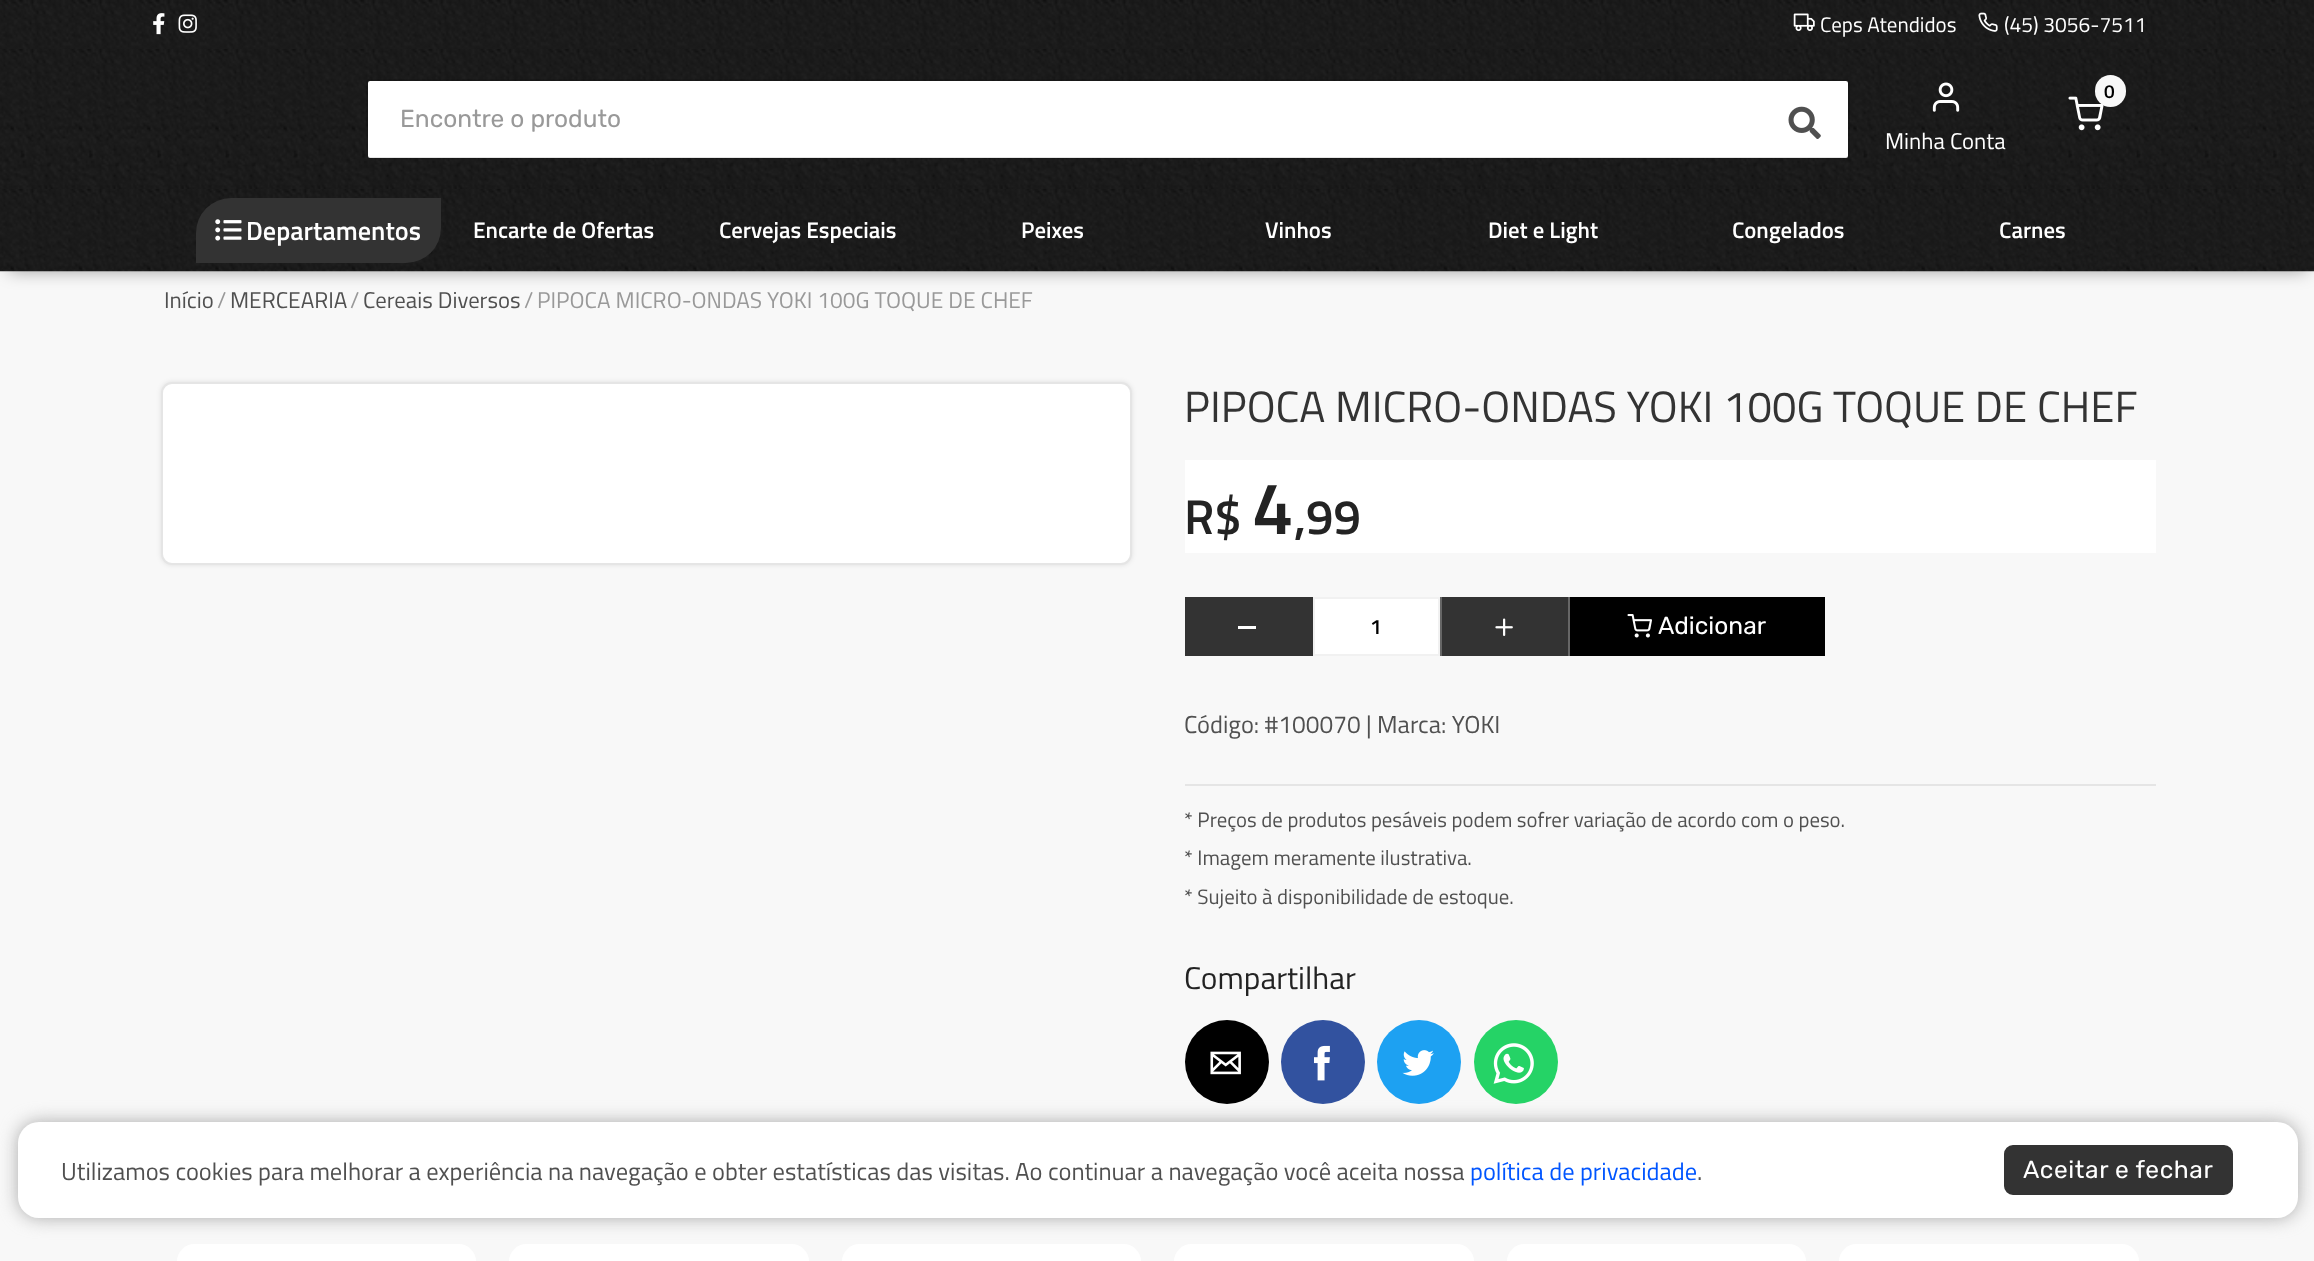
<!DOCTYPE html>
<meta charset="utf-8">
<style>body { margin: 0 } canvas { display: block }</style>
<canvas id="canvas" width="2314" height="1261"></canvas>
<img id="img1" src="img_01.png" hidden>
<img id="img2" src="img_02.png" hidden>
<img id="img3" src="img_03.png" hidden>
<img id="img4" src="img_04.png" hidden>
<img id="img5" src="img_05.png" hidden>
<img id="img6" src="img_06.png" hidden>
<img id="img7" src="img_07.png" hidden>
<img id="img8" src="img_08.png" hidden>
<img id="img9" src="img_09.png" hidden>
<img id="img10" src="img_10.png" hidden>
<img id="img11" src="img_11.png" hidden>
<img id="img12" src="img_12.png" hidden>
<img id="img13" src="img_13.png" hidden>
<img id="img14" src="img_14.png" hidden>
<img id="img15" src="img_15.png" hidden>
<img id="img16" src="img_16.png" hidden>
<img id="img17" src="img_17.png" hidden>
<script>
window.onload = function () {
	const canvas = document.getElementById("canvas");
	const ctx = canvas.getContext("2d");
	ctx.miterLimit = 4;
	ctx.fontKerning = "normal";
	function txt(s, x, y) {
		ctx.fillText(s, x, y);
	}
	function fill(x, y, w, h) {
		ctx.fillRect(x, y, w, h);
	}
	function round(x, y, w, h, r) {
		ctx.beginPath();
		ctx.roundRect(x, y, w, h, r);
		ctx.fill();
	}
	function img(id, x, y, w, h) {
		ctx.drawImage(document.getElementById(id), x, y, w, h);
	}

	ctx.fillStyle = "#F8F8F8";
	fill(0, 0, 2314, 1261);
	img("img1", 0, 0, 2314, 49);
	img("img2", 153, 13, 12, 22);
	img("img3", 178, 14, 19, 19);
	img("img4", 1793, 13, 22, 19);
	img("img5", 1978, 12, 20, 20);
	img("img6", 0, 49, 2314, 140);
	ctx.fillStyle = "#FFFFFF";
	round(368, 81, 1480, 77, 2);
	ctx.beginPath();
	ctx.roundRect(367, 80, 1482, 78, 3);
	ctx.strokeStyle = "rgba(0, 0, 0, 0.1)";
	ctx.lineWidth = 2;
	ctx.stroke();
	img("img7", 1788, 106, 33, 33);
	img("img8", 2068, 96, 36, 35);
	ctx.fillStyle = "#F8F8F8";
	round(2095, 75, 31, 32, 15.5);
	img("img9", 1932, 82, 28, 30);
	ctx.fillStyle = "rgba(0, 0, 0, 0.4)";
	ctx.filter = "blur(9px)";
	ctx.beginPath();
	ctx.rect(9, 205, 2298, 65);
	ctx.fill();
	ctx.filter = "none";
	img("img10", 0, 189, 2314, 83);
	ctx.fillStyle = "#333333";
	ctx.beginPath();
	ctx.roundRect(196, 198, 245, 65, [35, 0, 35, 0]);
	ctx.fill();
	img("img11", 215, 219, 27, 22);
	ctx.fillStyle = "rgba(0, 0, 0, 0.1)";
	ctx.filter = "blur(2.5px)";
	ctx.beginPath();
	ctx.roundRect(161, 382, 971, 183, 11);
	ctx.fill();
	ctx.filter = "none";
	ctx.fillStyle = "#FFFFFF";
	ctx.beginPath();
	ctx.roundRect(162, 383, 969, 181, 10);
	ctx.fill();
	ctx.strokeStyle = "#E5E5E5";
	ctx.stroke();
	fill(1185, 460, 971, 93);
	ctx.fillStyle = "#333333";
	fill(1185, 597, 128, 59);
	ctx.fillStyle = "#FFFFFF";
	fill(1238, 626, 18, 3);
	ctx.beginPath();
	ctx.rect(1314, 598, 125, 57);
	ctx.fill();
	ctx.strokeStyle = "#F1F1F1";
	ctx.stroke();
	ctx.fillStyle = "#333333";
	fill(1442, 597, 126, 59);
	ctx.fillStyle = "#666666";
	fill(1440, 597, 2, 59);
	img("img12", 1495, 618, 18, 18);
	ctx.fillStyle = "#000000";
	fill(1570, 597, 255, 59);
	ctx.fillStyle = "#666666";
	fill(1568, 597, 2, 59);
	img("img13", 1627, 614, 25, 24);
	ctx.fillStyle = "#E5E5E5";
	fill(1185, 784, 971, 2);
	ctx.fillStyle = "#000000";
	ctx.beginPath();
	ctx.arc(1227, 1062, 42, 0, Math.PI * 2);
	ctx.fill();
	img("img14", 1210, 1051, 31, 24);
	ctx.fillStyle = "#32529F";
	ctx.beginPath();
	ctx.arc(1323, 1062, 42, 0, Math.PI * 2);
	ctx.fill();
	img("img15", 1314, 1045, 16, 36);
	ctx.fillStyle = "#1DA1F2";
	ctx.beginPath();
	ctx.arc(1419, 1062, 42, 0, Math.PI * 2);
	ctx.fill();
	img("img16", 1402, 1050, 32, 26);
	ctx.fillStyle = "#25D366";
	ctx.beginPath();
	ctx.arc(1516, 1062, 42, 0, Math.PI * 2);
	ctx.fill();
	img("img17", 1493, 1043, 41, 41);
	ctx.fillStyle = "#FFFFFF";
	round(177, 1244, 299, 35, 18);
	round(509, 1244, 300, 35, 18);
	round(842, 1244, 299, 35, 18);
	round(1174, 1244, 300, 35, 18);
	round(1507, 1244, 299, 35, 18);
	round(1839, 1244, 300, 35, 18);
	ctx.fillStyle = "#AAAAAA";
	ctx.filter = "blur(9px)";
	ctx.beginPath();
	ctx.roundRect(18, 1122, 2280, 96, 21);
	ctx.fill();
	ctx.filter = "none";
	ctx.fillStyle = "#FFFFFF";
	round(18, 1122, 2280, 96, 21);
	ctx.fillStyle = "#333333";
	ctx.beginPath();
	ctx.roundRect(2005, 1146, 227, 48, 8);
	ctx.fill();
	ctx.strokeStyle = "#333333";
	ctx.stroke();
	ctx.font = "21px Titillium Web";
	ctx.fillStyle = "#FFFFFF";
	txt("Ceps Atendidos", 1820, 32);
	txt("(45) 3056-7511", 2004, 32);
	ctx.font = "24.5px Rubik";
	ctx.fillStyle = "#999999";
	txt("Encontre o produto", 400, 127);
	ctx.font = "600 19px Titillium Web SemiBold";
	ctx.fillStyle = "#000000";
	txt("0", 2104, 98);
	ctx.font = "22.75px Titillium Web";
	ctx.fillStyle = "#FFFFFF";
	txt("Minha Conta", 1885, 149);
	ctx.font = "600 26.25px Titillium Web SemiBold";
	txt("Departamentos", 246, 240);
	ctx.font = "600 22.75px Titillium Web SemiBold";
	txt("Encarte de Ofertas", 473, 238);
	txt("Cervejas Especiais", 719, 238);
	txt("Peixes", 1021, 238);
	txt("Vinhos", 1265, 238);
	txt("Diet e Light", 1488, 238);
	txt("Congelados", 1732, 238);
	txt("Carnes", 1999, 238);
	ctx.font = "22.75px Titillium Web";
	ctx.fillStyle = "#505050";
	txt("Início", 164, 308);
	ctx.fillStyle = "#999999";
	txt("/", 217, 308);
	ctx.fillStyle = "#505050";
	txt("MERCEARIA", 230, 308);
	ctx.fillStyle = "#999999";
	txt("/", 350, 308);
	ctx.fillStyle = "#505050";
	txt("Cereais Diversos", 363, 308);
	ctx.fillStyle = "#999999";
	txt("/", 524, 308);
	txt("PIPOCA MICRO-ONDAS YOKI 100G TOQUE DE CHEF", 537, 308);
	ctx.font = "43.75px Titillium Web";
	ctx.fillStyle = "#333333";
	txt("PIPOCA MICRO-ONDAS YOKI 100G TOQUE DE CHEF", 1184, 422);
	ctx.font = "600 49px Titillium Web SemiBold";
	ctx.fillStyle = "#232323";
	txt("R$", 1184, 534);
	ctx.font = "600 74px Titillium Web SemiBold";
	txt("4", 1252, 534);
	ctx.font = "600 49px Titillium Web SemiBold";
	txt(",99", 1294, 534);
	ctx.font = "600 21px Titillium Web SemiBold";
	ctx.fillStyle = "#000000";
	txt("1", 1370, 634);
	ctx.font = "24.5px Rubik";
	ctx.fillStyle = "#FFFFFF";
	txt("Adicionar", 1658, 634);
	ctx.font = "24.5px Titillium Web";
	ctx.fillStyle = "#505050";
	txt("Código: #100070 | Marca: YOKI", 1184, 733);
	ctx.font = "20.8px Titillium Web";
	txt("* Preços de produtos pesáveis podem sofrer variação de acordo com o peso.", 1184, 827);
	txt("* Imagem meramente ilustrativa.", 1184, 865);
	txt("* Sujeito à disponibilidade de estoque.", 1184, 904);
	ctx.font = "31.5px Titillium Web";
	ctx.fillStyle = "#232323";
	txt("Compartilhar", 1184, 989);
	ctx.font = "24.5px Titillium Web";
	ctx.fillStyle = "#505050";
	txt("Utilizamos cookies para melhorar a experiência na navegação e obter estatísticas das visitas. Ao continuar a navegação você aceita nossa", 61, 1180);
	ctx.fillStyle = "#0055FF";
	txt("política de privacidade", 1470, 1180);
	ctx.fillStyle = "#505050";
	txt(".", 1697, 1180);
	ctx.letterSpacing = "0.6px";
	ctx.font = "24.5px Rubik";
	ctx.fillStyle = "#FFFFFF";
	txt("Aceitar e fechar", 2023, 1178);
};
</script>
